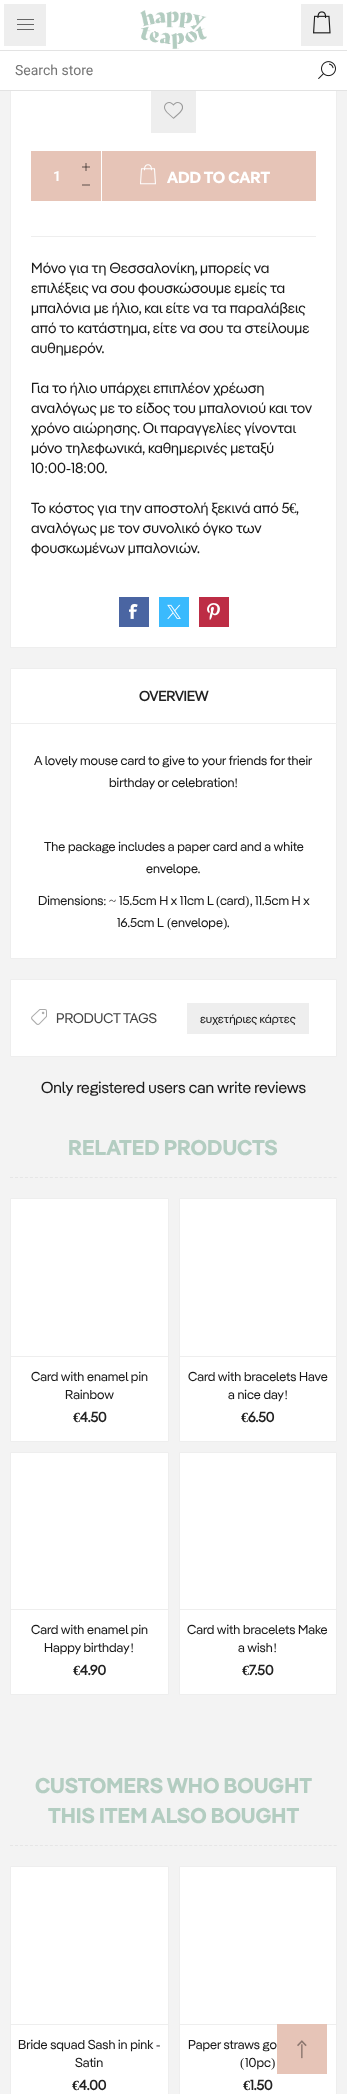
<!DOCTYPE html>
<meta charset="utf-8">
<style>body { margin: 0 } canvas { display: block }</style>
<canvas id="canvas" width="347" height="2094"></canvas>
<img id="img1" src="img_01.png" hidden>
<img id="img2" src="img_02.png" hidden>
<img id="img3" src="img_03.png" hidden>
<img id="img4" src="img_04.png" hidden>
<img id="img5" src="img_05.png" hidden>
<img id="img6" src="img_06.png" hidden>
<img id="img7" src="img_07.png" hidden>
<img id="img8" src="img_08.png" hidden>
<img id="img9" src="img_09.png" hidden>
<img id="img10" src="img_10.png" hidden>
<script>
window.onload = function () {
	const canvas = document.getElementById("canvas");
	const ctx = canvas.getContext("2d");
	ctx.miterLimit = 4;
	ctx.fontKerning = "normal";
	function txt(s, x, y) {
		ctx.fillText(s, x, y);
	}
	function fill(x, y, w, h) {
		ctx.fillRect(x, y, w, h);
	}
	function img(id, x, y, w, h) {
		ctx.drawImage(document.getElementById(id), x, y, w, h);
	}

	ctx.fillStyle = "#F3F3F3";
	fill(0, 0, 347, 2094);
	ctx.fillStyle = "#FFFFFF";
	fill(11, 91, 325, 556);
	ctx.strokeStyle = "#EEEEEE";
	ctx.strokeRect(10.5, -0.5, 326, 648);
	ctx.fillStyle = "#EEEEEE";
	ctx.beginPath();
	ctx.rect(2, 2, 46, 46);
	ctx.fill();
	ctx.strokeStyle = "#FFFFFF";
	ctx.lineWidth = 4;
	ctx.stroke();
	ctx.fillStyle = "#666666";
	fill(17, 19, 17, 1);
	fill(17, 24, 17, 1);
	fill(17, 29, 17, 1);
	ctx.fillStyle = "#EEEEEE";
	ctx.beginPath();
	ctx.rect(299, 2, 46, 46);
	ctx.fill();
	ctx.stroke();
	img("img1", 313, 11, 18, 23);
	ctx.fillStyle = "#E3E3E3";
	fill(0, 50, 347, 1);
	ctx.fillStyle = "#FFFFFF";
	fill(50, 0, 247, 50);
	img("img2", 140, 10, 67, 39);
	fill(0, 51, 347, 39);
	ctx.fillStyle = "#E3E3E3";
	fill(0, 90, 347, 1);
	img("img3", 318, 61, 18, 18);
	ctx.fillStyle = "#EEEEEE";
	fill(151, 91, 45, 42);
	img("img4", 164, 102, 19, 17);
	ctx.fillStyle = "#E6C4B7";
	fill(31, 151, 40, 50);
	fill(71, 151, 30, 50);
	ctx.fillStyle = "#A18980";
	fill(85, 163, 2, 8);
	fill(82, 166, 8, 2);
	ctx.fillStyle = "#71605A";
	fill(85, 166, 2, 2);
	ctx.fillStyle = "#A18980";
	fill(82, 184, 8, 2);
	ctx.fillStyle = "#E6C4B7";
	fill(102, 151, 214, 50);
	img("img5", 140, 164, 16, 21);
	ctx.fillStyle = "#EEEEEE";
	fill(31, 236, 285, 1);
	ctx.fillStyle = "#4A65A2";
	fill(119, 597, 30, 30);
	img("img6", 129, 603, 9, 16);
	ctx.fillStyle = "#3ABAFD";
	fill(159, 597, 30, 30);
	img("img7", 167, 604, 14, 15);
	ctx.fillStyle = "#BD2D45";
	fill(199, 597, 30, 30);
	img("img8", 207, 603, 13, 17);
	ctx.fillStyle = "#FFFFFF";
	ctx.beginPath();
	ctx.rect(10.5, 723.5, 326, 235);
	ctx.fill();
	ctx.strokeStyle = "#EEEEEE";
	ctx.lineWidth = 1;
	ctx.stroke();
	ctx.beginPath();
	ctx.rect(10.5, 668.5, 326, 55);
	ctx.fill();
	ctx.stroke();
	ctx.beginPath();
	ctx.rect(10.5, 979.5, 326, 77);
	ctx.fill();
	ctx.stroke();
	img("img9", 31, 1009, 16, 16);
	ctx.fillStyle = "#EEEEEE";
	fill(187, 1003, 122, 31);
	ctx.beginPath();
	ctx.moveTo(10, 1177.5);
	ctx.lineTo(337, 1177.5);
	ctx.strokeStyle = "#E6E6E6";
	ctx.setLineDash([3, 1.98]);
	ctx.stroke();
	ctx.fillStyle = "#FFFFFF";
	ctx.beginPath();
	ctx.rect(10.5, 1198.5, 158, 243);
	ctx.fill();
	ctx.strokeStyle = "#EEEEEE";
	ctx.setLineDash([]);
	ctx.stroke();
	ctx.fillStyle = "#EEEEEE";
	fill(11, 1356, 157, 1);
	ctx.fillStyle = "#FFFFFF";
	ctx.beginPath();
	ctx.rect(179.5, 1198.5, 157, 243);
	ctx.fill();
	ctx.stroke();
	ctx.fillStyle = "#EEEEEE";
	fill(180, 1356, 156, 1);
	ctx.fillStyle = "#FFFFFF";
	ctx.beginPath();
	ctx.rect(10.5, 1452.5, 158, 242);
	ctx.fill();
	ctx.stroke();
	ctx.fillStyle = "#EEEEEE";
	fill(11, 1609, 157, 1);
	ctx.fillStyle = "#FFFFFF";
	ctx.beginPath();
	ctx.rect(179.5, 1452.5, 157, 242);
	ctx.fill();
	ctx.stroke();
	ctx.fillStyle = "#EEEEEE";
	fill(180, 1609, 156, 1);
	ctx.beginPath();
	ctx.moveTo(10, 1845.5);
	ctx.lineTo(337, 1845.5);
	ctx.strokeStyle = "#E6E6E6";
	ctx.setLineDash([3, 1.98]);
	ctx.stroke();
	ctx.fillStyle = "#FFFFFF";
	ctx.beginPath();
	ctx.rect(10.5, 1866.5, 158, 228);
	ctx.fill();
	ctx.strokeStyle = "#EEEEEE";
	ctx.setLineDash([]);
	ctx.stroke();
	ctx.fillStyle = "#EEEEEE";
	fill(11, 2024, 157, 1);
	ctx.fillStyle = "#FFFFFF";
	ctx.beginPath();
	ctx.rect(179.5, 1866.5, 157, 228);
	ctx.fill();
	ctx.stroke();
	ctx.fillStyle = "#EEEEEE";
	fill(180, 2024, 156, 1);
	ctx.fillStyle = "#E6C4B7";
	fill(277, 2024, 50, 50);
	img("img10", 297, 2040, 10, 19);
	ctx.font = "14px Roboto";
	ctx.fillStyle = "#757575";
	txt("Search store", 15, 75);
	ctx.font = "bold 14px Roboto";
	ctx.fillStyle = "#FFFFFF";
	txt("1", 53, 181);
	ctx.font = "bold 16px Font";
	txt("ADD TO CART", 167, 183);
	ctx.font = "14.7px Font";
	ctx.fillStyle = "#1A1A1A";
	txt("Μόνο για τη Θεσσαλονίκη,", 31, 273);
	txt("μπορείς να", 200, 273);
	txt("επιλέξεις να σου φουσκώσουμε εμείς τα", 31, 293);
	txt("μπαλόνια με ήλιο, και είτε να τα παραλάβεις", 31, 313);
	txt("από το κατάστημα, είτε να σου τα στείλουμε", 31, 333);
	txt("αυθημερόν.", 31, 353);
	txt("Για το ήλιο υπάρχει επιπλέον χρέωση", 31, 393);
	txt("αναλόγως με το είδος του μπαλονιού και τον", 31, 413);
	txt("χρόνο αιώρησης. Οι παραγγελίες γίνονται", 31, 433);
	txt("μόνο τηλεφωνικά, καθημερινές μεταξύ", 31, 453);
	txt("10", 31, 473);
	ctx.font = "14.7px Liberation Serif";
	txt(":", 44, 473);
	ctx.font = "14.7px Font";
	txt("00", 48, 473);
	ctx.font = "14.7px Liberation Serif";
	txt("-", 66, 473);
	ctx.font = "14.7px Font";
	txt("18", 71, 473);
	ctx.font = "14.7px Liberation Serif";
	txt(":", 83, 473);
	ctx.font = "14.7px Font";
	txt("00.", 87, 473);
	txt("Το κόστος για την αποστολή ξεκινά από 5", 31, 513);
	ctx.font = "14.7px Liberation Serif";
	txt("€", 289, 513);
	ctx.font = "14.7px Font";
	txt(",", 296, 513);
	txt("αναλόγως με τον συνολικό όγκο των", 31, 533);
	txt("φουσκωμένων μπαλονιών.", 31, 553);
	ctx.font = "bold 14px 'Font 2'";
	ctx.fillStyle = "#222222";
	txt("OVERVIEW", 139, 701);
	ctx.font = "13px Font";
	ctx.fillStyle = "#1A1A1A";
	txt("A lovely mouse card to give to your friends for their", 34, 765);
	txt("birthday or celebration", 109, 787);
	ctx.font = "13px Liberation Serif";
	txt("!", 234, 787);
	ctx.font = "13px Font";
	txt("The package includes a paper card and a white", 44, 851);
	txt("envelope.", 146, 873);
	txt("Dimensions", 38, 905);
	ctx.font = "13px Liberation Serif";
	txt(":", 103, 905);
	txt("~", 109, 905);
	ctx.font = "13px Font";
	txt("15.5cm H x 11cm L", 119, 905);
	ctx.font = "13px Liberation Serif";
	txt("(", 216, 905);
	ctx.font = "13px Font";
	txt("card", 220, 905);
	ctx.font = "13px Liberation Serif";
	txt(")", 245, 905);
	ctx.font = "13px Font";
	txt(", 11.5cm H x", 250, 905);
	txt("16.5cm L", 117, 927);
	ctx.font = "13px Liberation Serif";
	txt("(", 167, 927);
	ctx.font = "13px Font";
	txt("envelope", 171, 927);
	ctx.font = "13px Liberation Serif";
	txt(")", 223, 927);
	ctx.font = "13px Font";
	txt(".", 227, 927);
	ctx.font = "14px Font";
	ctx.fillStyle = "#444444";
	txt("PRODUCT TAGS", 56, 1023);
	ctx.font = "12px Font";
	ctx.fillStyle = "#1A1A1A";
	txt("ευχετήριες κάρτες", 200, 1023);
	ctx.font = "16px Font";
	txt("Only registered users can write reviews", 41, 1093);
	ctx.font = "bold 21.3px Font";
	ctx.fillStyle = "#B3CDC1";
	txt("RELATED PRODUCTS", 68, 1155);
	ctx.font = "13px Font";
	ctx.fillStyle = "#1A1A1A";
	txt("Card with enamel pin", 31, 1381);
	txt("Rainbow", 65, 1399);
	ctx.font = "bold 14px Liberation Serif";
	ctx.fillStyle = "#222222";
	txt("€", 73, 1422);
	ctx.font = "bold 14px 'Font 2'";
	txt("4.50", 80, 1422);
	ctx.font = "13px Font";
	ctx.fillStyle = "#1A1A1A";
	txt("Card with bracelets Have", 188, 1381);
	txt("a nice day", 228, 1399);
	ctx.font = "13px Liberation Serif";
	txt("!", 284, 1399);
	ctx.font = "bold 14px Liberation Serif";
	ctx.fillStyle = "#222222";
	txt("€", 241, 1422);
	ctx.font = "bold 14px 'Font 2'";
	txt("6.50", 248, 1422);
	ctx.font = "13px Font";
	ctx.fillStyle = "#1A1A1A";
	txt("Card with enamel pin", 31, 1634);
	txt("Happy birthday", 44, 1652);
	ctx.font = "13px Liberation Serif";
	txt("!", 130, 1652);
	ctx.font = "bold 14px Liberation Serif";
	ctx.fillStyle = "#222222";
	txt("€", 73, 1675);
	ctx.font = "bold 14px 'Font 2'";
	txt("4.90", 80, 1675);
	ctx.font = "13px Font";
	ctx.fillStyle = "#1A1A1A";
	txt("Card with bracelets Make", 187, 1634);
	txt("a wish", 238, 1652);
	ctx.font = "13px Liberation Serif";
	txt("!", 273, 1652);
	ctx.font = "bold 14px Liberation Serif";
	ctx.fillStyle = "#222222";
	txt("€", 242, 1675);
	ctx.font = "bold 14px 'Font 2'";
	txt("7.50", 249, 1675);
	ctx.font = "bold 21.3px Font";
	ctx.fillStyle = "#B3CDC1";
	txt("CUSTOMERS WHO BOUGHT", 35, 1793);
	txt("THIS ITEM ALSO BOUGHT", 48, 1823);
	ctx.font = "13px Font";
	ctx.fillStyle = "#1A1A1A";
	txt("Bride squad Sash in pink", 18, 2049);
	ctx.font = "13px Liberation Serif";
	txt("-", 156, 2049);
	ctx.font = "13px Font";
	txt("Satin", 75, 2067);
	ctx.font = "bold 14px Liberation Serif";
	ctx.fillStyle = "#222222";
	txt("€", 72, 2090);
	ctx.font = "bold 14px 'Font 2'";
	txt("4.00", 79, 2090);
	ctx.font = "13px Font";
	ctx.fillStyle = "#1A1A1A";
	txt("Paper straws go", 188, 2049);
	ctx.font = "13px Liberation Serif";
	txt("(", 240, 2067);
	ctx.font = "13px Font";
	txt("10pc", 245, 2067);
	ctx.font = "13px Liberation Serif";
	txt(")", 271, 2067);
	ctx.font = "bold 14px Liberation Serif";
	ctx.fillStyle = "#222222";
	txt("€", 243, 2090);
	ctx.font = "bold 14px 'Font 2'";
	txt("1.50", 250, 2090);
};
</script>
